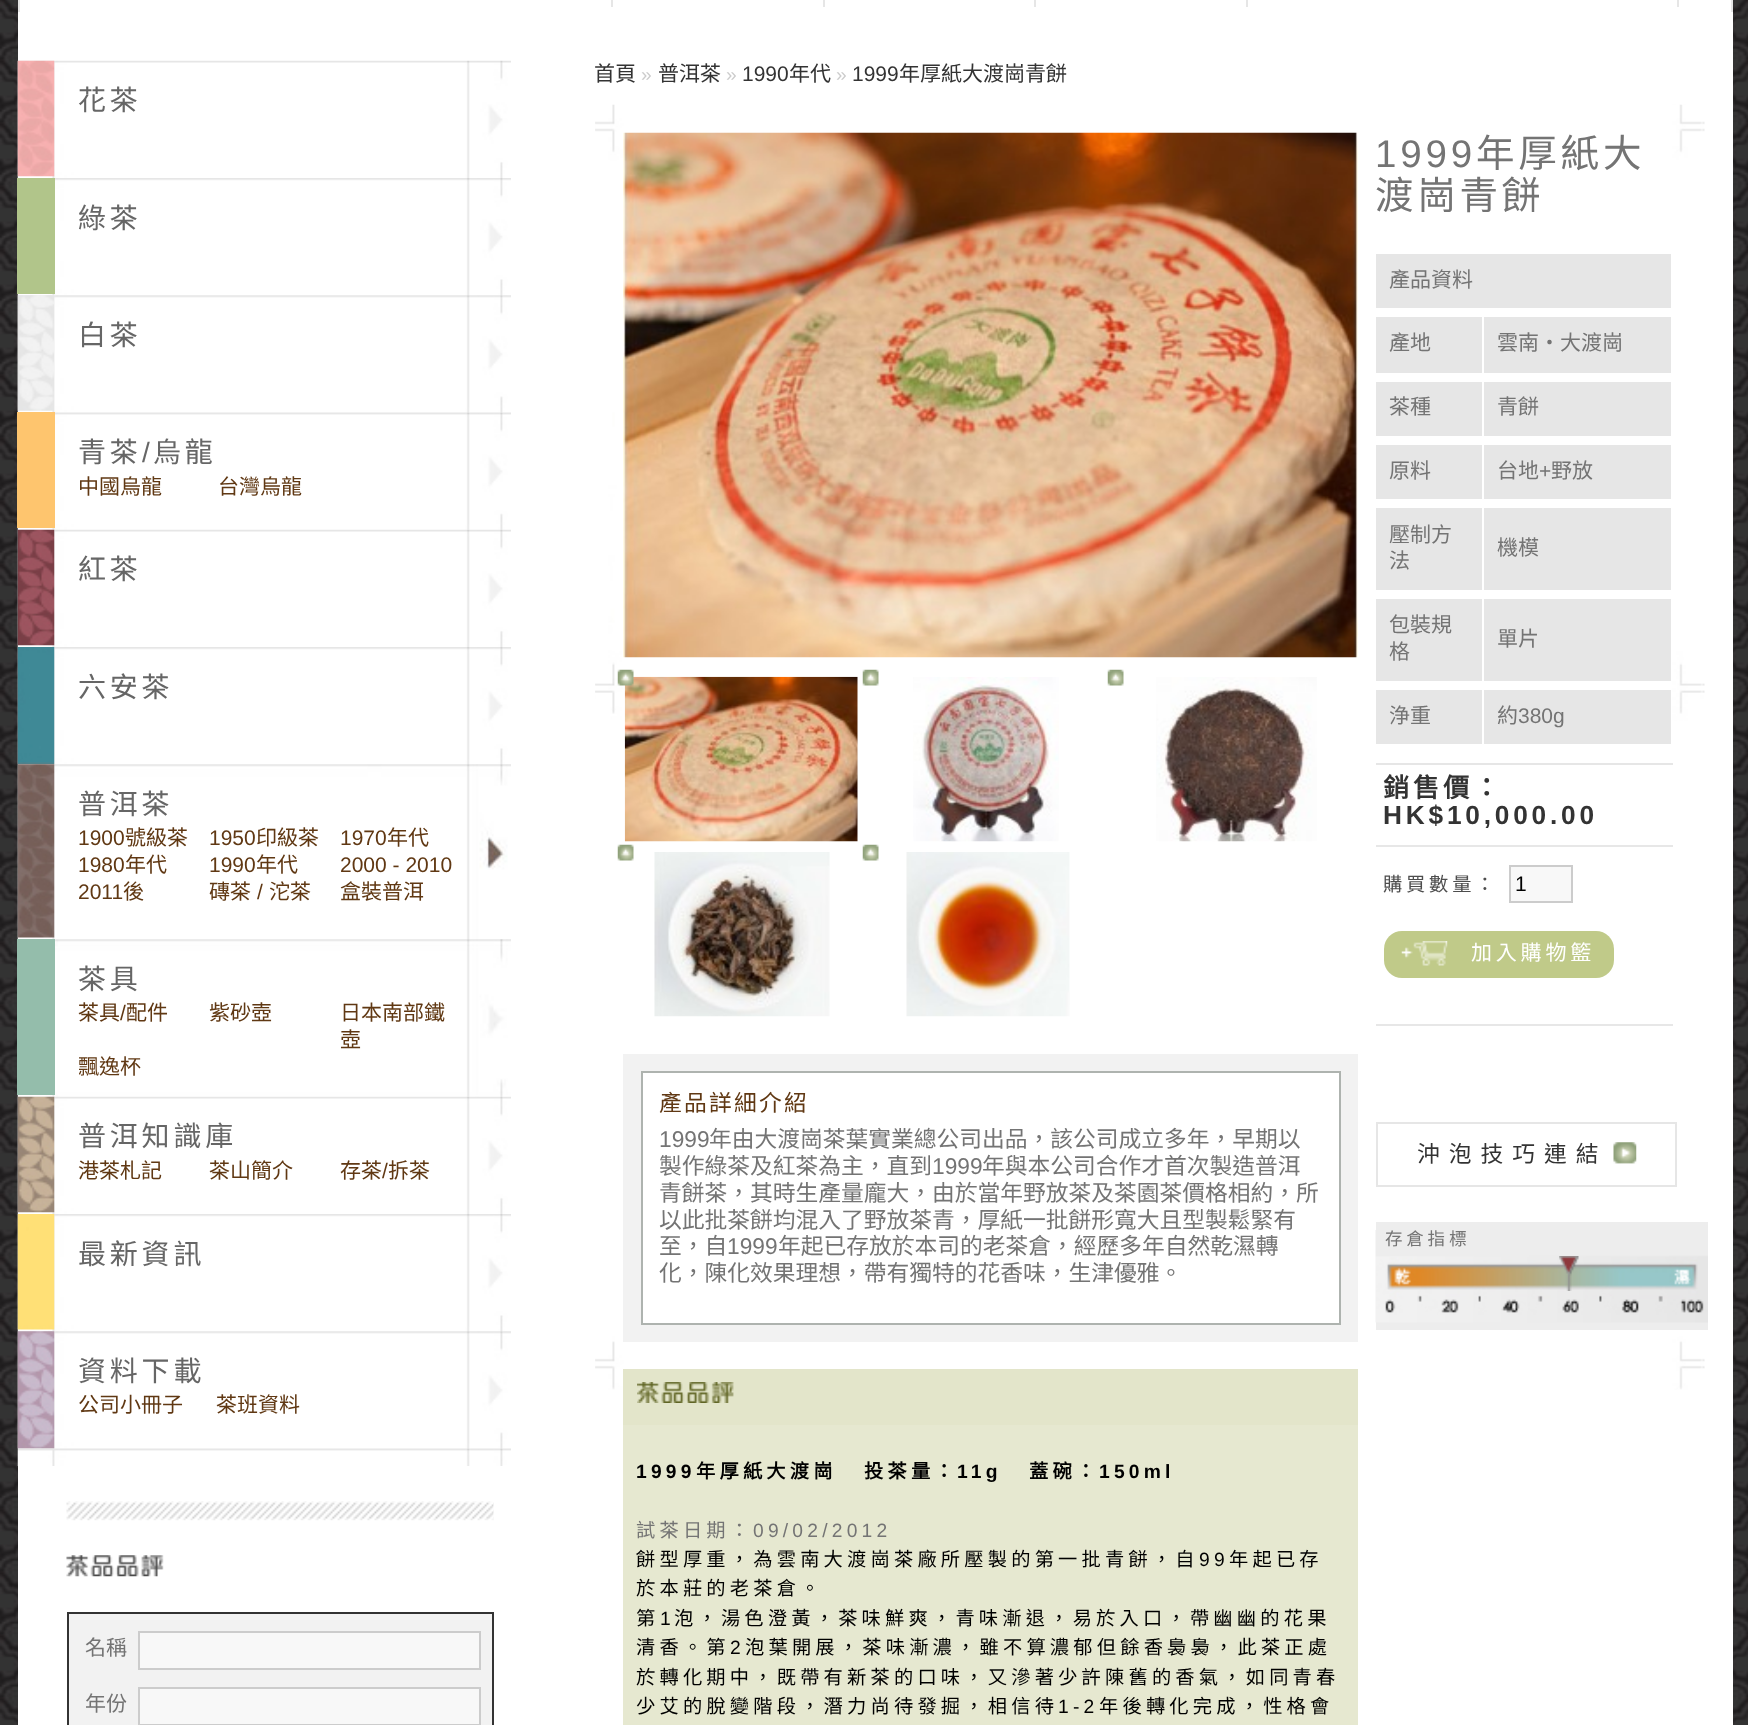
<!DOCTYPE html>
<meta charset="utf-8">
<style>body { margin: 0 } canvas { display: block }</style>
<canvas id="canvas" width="1748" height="1725"></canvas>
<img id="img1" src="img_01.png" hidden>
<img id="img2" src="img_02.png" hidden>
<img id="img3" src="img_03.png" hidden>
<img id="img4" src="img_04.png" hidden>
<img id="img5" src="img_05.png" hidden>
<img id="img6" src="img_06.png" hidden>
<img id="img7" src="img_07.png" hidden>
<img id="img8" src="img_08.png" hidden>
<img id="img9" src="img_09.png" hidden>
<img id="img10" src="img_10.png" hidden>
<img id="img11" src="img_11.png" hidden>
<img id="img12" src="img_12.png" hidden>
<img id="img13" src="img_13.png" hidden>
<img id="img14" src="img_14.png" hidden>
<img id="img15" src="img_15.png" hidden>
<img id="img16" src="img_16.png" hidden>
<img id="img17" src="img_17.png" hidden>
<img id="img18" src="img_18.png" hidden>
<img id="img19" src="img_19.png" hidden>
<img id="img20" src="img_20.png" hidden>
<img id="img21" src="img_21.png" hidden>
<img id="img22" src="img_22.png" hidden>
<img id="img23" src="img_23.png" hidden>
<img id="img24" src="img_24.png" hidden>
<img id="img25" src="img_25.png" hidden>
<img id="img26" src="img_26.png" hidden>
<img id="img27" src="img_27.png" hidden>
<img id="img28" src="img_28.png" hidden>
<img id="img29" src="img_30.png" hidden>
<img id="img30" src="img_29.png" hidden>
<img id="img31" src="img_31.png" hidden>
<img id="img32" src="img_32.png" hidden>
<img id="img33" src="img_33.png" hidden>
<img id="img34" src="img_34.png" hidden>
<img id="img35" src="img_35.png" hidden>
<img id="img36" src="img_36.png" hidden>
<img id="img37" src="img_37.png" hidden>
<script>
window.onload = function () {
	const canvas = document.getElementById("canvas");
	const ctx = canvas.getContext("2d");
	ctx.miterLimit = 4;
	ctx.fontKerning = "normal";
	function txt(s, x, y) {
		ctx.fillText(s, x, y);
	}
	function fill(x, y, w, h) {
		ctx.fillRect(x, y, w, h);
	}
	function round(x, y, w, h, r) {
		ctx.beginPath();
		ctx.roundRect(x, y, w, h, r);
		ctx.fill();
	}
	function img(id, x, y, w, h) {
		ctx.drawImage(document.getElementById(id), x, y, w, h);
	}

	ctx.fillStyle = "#FFFFFF";
	fill(0, 0, 1748, 1725);
	img("img1", 0, 0, 1748, 1725);
	fill(18, 0, 1715, 1725);
	ctx.fillStyle = "#E6E6E6";
	fill(1731, 0, 2, 12);
	fill(18, 0, 2, 12);
	fill(611, 0, 2, 7);
	fill(823, 0, 2, 7);
	fill(1034, 0, 2, 7);
	fill(1677, 0, 2, 7);
	fill(1246, 0, 2, 7);
	img("img2", 17, 60, 494, 118);
	img("img3", 17, 60, 38, 117);
	img("img4", 17, 178, 494, 118);
	ctx.fillStyle = "#B1C58A";
	fill(17, 178, 38, 116);
	img("img5", 17, 295, 494, 118);
	img("img6", 17, 295, 37, 116);
	img("img7", 17, 412, 494, 118);
	ctx.fillStyle = "#FEC56E";
	fill(17, 412, 38, 116);
	img("img8", 17, 529, 494, 118);
	img("img9", 17, 529, 38, 117);
	img("img10", 17, 647, 494, 118);
	img("img11", 17, 647, 38, 118);
	img("img12", 17, 764, 494, 176);
	img("img13", 17, 764, 38, 174);
	img("img14", 17, 939, 494, 158);
	ctx.fillStyle = "#94BDAB";
	fill(17, 939, 38, 156);
	img("img15", 17, 1096, 494, 118);
	img("img16", 17, 1096, 38, 117);
	img("img10", 17, 1214, 494, 118);
	img("img17", 17, 1214, 38, 116);
	img("img18", 17, 1331, 494, 118);
	img("img19", 17, 1331, 38, 118);
	img("img20", 17, 1448, 494, 18);
	img("img21", 66, 1501, 428, 20);
	img("img22", 66, 1555, 98, 22);
	ctx.fillStyle = "#F2F2F2";
	ctx.beginPath();
	ctx.rect(68, 1613, 425, 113);
	ctx.fill();
	ctx.strokeStyle = "#333333";
	ctx.lineWidth = 2;
	ctx.stroke();
	ctx.fillStyle = "#F8F8F8";
	ctx.beginPath();
	ctx.rect(139, 1632, 341, 37);
	ctx.fill();
	ctx.strokeStyle = "#CCCCCC";
	ctx.stroke();
	ctx.beginPath();
	ctx.rect(139, 1688, 341, 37);
	ctx.fill();
	ctx.stroke();
	img("img23", 595, 104, 1110, 1286);
	ctx.fillStyle = "#E6E6E6";
	fill(1376, 254, 295, 490);
	ctx.fillStyle = "#FFFFFF";
	fill(1482, 312, 2, 437);
	fill(1376, 308, 295, 9);
	fill(1376, 373, 295, 9);
	fill(1376, 436, 295, 9);
	fill(1376, 499, 295, 9);
	fill(1376, 590, 295, 9);
	fill(1376, 681, 295, 9);
	ctx.fillStyle = "#E6E6E6";
	fill(1376, 763, 297, 2);
	ctx.fillStyle = "#E7E7E7";
	fill(1376, 845, 297, 2);
	fill(1376, 1024, 297, 2);
	ctx.fillStyle = "#F8F8F8";
	ctx.beginPath();
	ctx.rect(1510, 866, 62, 36);
	ctx.fill();
	ctx.stroke();
	ctx.fillStyle = "#C0CA89";
	round(1384, 931, 230, 47, 18);
	img("img24", 1401, 941, 47, 25);
	img("img25", 1613, 1142, 24, 22);
	ctx.strokeStyle = "#E6E6E6";
	ctx.strokeRect(1377, 1123, 299, 63);
	ctx.fillStyle = "#EDEDED";
	fill(1376, 1222, 332, 108);
	img("img26", 1375, 1230, 333, 93);
	img("img27", 1559, 1256, 20, 35);
	img("img28", 623, 132, 735, 526);
	img("img29", 624, 676, 234, 166);
	img("img30", 617, 669, 17, 17);
	img("img31", 862, 669, 17, 17);
	img("img32", 913, 677, 146, 165);
	img("img33", 1107, 669, 17, 17);
	img("img34", 1156, 677, 161, 165);
	img("img31", 617, 844, 17, 17);
	img("img35", 654, 852, 176, 165);
	img("img31", 862, 844, 17, 17);
	img("img36", 906, 852, 164, 165);
	ctx.fillStyle = "#F2F2F2";
	fill(623, 1054, 735, 288);
	ctx.fillStyle = "#FFFFFF";
	ctx.beginPath();
	ctx.rect(642, 1072, 698, 252);
	ctx.fill();
	ctx.strokeStyle = "#AEB3AF";
	ctx.stroke();
	ctx.fillStyle = "#E6E8D0";
	fill(623, 1425, 735, 300);
	ctx.fillStyle = "#E3E5CA";
	fill(623, 1369, 735, 56);
	img("img37", 637, 1382, 97, 21);
	ctx.letterSpacing = "3.8px";
	ctx.font = "28px Noto Sans CJK HK";
	ctx.fillStyle = "#666666";
	txt("花茶", 78, 110);
	txt("綠茶", 78, 228);
	txt("白茶", 78, 345);
	txt("青茶", 78, 462);
	ctx.font = "28px Liberation Sans";
	txt("/", 142, 462);
	ctx.font = "28px Noto Sans CJK HK";
	txt("烏龍", 153, 462);
	ctx.letterSpacing = "0px";
	ctx.font = "21px Noto Sans CJK HK";
	ctx.fillStyle = "#603813";
	txt("中國烏龍", 78, 494);
	txt("台灣烏龍", 218, 494);
	ctx.letterSpacing = "3.8px";
	ctx.font = "28px Noto Sans CJK HK";
	ctx.fillStyle = "#666666";
	txt("紅茶", 78, 579);
	txt("六安茶", 78, 697);
	txt("普洱茶", 78, 814);
	ctx.letterSpacing = "0px";
	ctx.font = "21px Liberation Sans";
	ctx.fillStyle = "#603813";
	txt("1900", 78, 845);
	ctx.font = "21px Noto Sans CJK HK";
	txt("號級茶", 125, 845);
	ctx.font = "21px Liberation Sans";
	txt("1950", 209, 845);
	ctx.font = "21px Noto Sans CJK HK";
	txt("印級茶", 256, 845);
	ctx.font = "21px Liberation Sans";
	txt("1970", 340, 845);
	ctx.font = "21px Noto Sans CJK HK";
	txt("年代", 387, 845);
	ctx.font = "21px Liberation Sans";
	txt("1980", 78, 872);
	ctx.font = "21px Noto Sans CJK HK";
	txt("年代", 125, 872);
	ctx.font = "21px Liberation Sans";
	txt("1990", 209, 872);
	ctx.font = "21px Noto Sans CJK HK";
	txt("年代", 256, 872);
	ctx.font = "21px Liberation Sans";
	txt("2000 - 2010", 340, 872);
	txt("2011", 78, 899);
	ctx.font = "21px Noto Sans CJK HK";
	txt("後", 123, 899);
	txt("磚茶", 209, 899);
	ctx.font = "21px Liberation Sans";
	txt("/", 257, 899);
	ctx.font = "21px Noto Sans CJK HK";
	txt("沱茶", 269, 899);
	txt("盒裝普洱", 340, 899);
	ctx.letterSpacing = "3.8px";
	ctx.font = "28px Noto Sans CJK HK";
	ctx.fillStyle = "#666666";
	txt("茶具", 78, 989);
	ctx.letterSpacing = "0px";
	ctx.font = "21px Noto Sans CJK HK";
	ctx.fillStyle = "#603813";
	txt("茶具", 78, 1020);
	ctx.font = "21px Liberation Sans";
	txt("/", 120, 1020);
	ctx.font = "21px Noto Sans CJK HK";
	txt("配件", 126, 1020);
	txt("紫砂壺", 209, 1020);
	txt("日本南部鐵", 340, 1020);
	txt("壺", 340, 1047);
	ctx.save();
	ctx.beginPath();
	ctx.rect(79, 1001, 376, 81);
	ctx.clip();
	txt("飄逸杯", 78, 1074);
	ctx.restore();
	ctx.letterSpacing = "3.8px";
	ctx.font = "28px Noto Sans CJK HK";
	ctx.fillStyle = "#666666";
	txt("普洱知識庫", 78, 1146);
	ctx.letterSpacing = "0px";
	ctx.font = "21px Noto Sans CJK HK";
	ctx.fillStyle = "#603813";
	txt("港茶札記", 78, 1178);
	txt("茶山簡介", 209, 1178);
	txt("存茶", 340, 1178);
	ctx.font = "21px Liberation Sans";
	txt("/", 382, 1178);
	ctx.font = "21px Noto Sans CJK HK";
	txt("拆茶", 388, 1178);
	ctx.letterSpacing = "3.8px";
	ctx.font = "28px Noto Sans CJK HK";
	ctx.fillStyle = "#666666";
	txt("最新資訊", 78, 1264);
	txt("資料下載", 78, 1381);
	ctx.letterSpacing = "0px";
	ctx.font = "21px Noto Sans CJK HK";
	ctx.fillStyle = "#603813";
	txt("公司小冊子", 78, 1412);
	txt("茶班資料", 216, 1412);
	ctx.fillStyle = "#747474";
	txt("名稱", 85, 1655);
	txt("年份", 85, 1711);
	ctx.fillStyle = "#333333";
	txt("首頁", 594, 81);
	ctx.font = "19.25px Liberation Sans";
	ctx.fillStyle = "#CCCCCC";
	txt("»", 641, 81);
	ctx.font = "21px Noto Sans CJK HK";
	ctx.fillStyle = "#333333";
	txt("普洱茶", 658, 81);
	ctx.font = "19.25px Liberation Sans";
	ctx.fillStyle = "#CCCCCC";
	txt("»", 726, 81);
	ctx.font = "21px Liberation Sans";
	ctx.fillStyle = "#333333";
	txt("1990", 742, 81);
	ctx.font = "21px Noto Sans CJK HK";
	txt("年代", 789, 81);
	ctx.font = "19.25px Liberation Sans";
	ctx.fillStyle = "#CCCCCC";
	txt("»", 836, 81);
	ctx.font = "21px Liberation Sans";
	ctx.fillStyle = "#333333";
	txt("1999", 852, 81);
	ctx.font = "21px Noto Sans CJK HK";
	txt("年厚紙大渡崗青餅", 899, 81);
	ctx.letterSpacing = "3.8px";
	ctx.font = "38.5px Liberation Sans";
	ctx.fillStyle = "#747474";
	txt("1999", 1375, 167);
	ctx.font = "38.5px Noto Sans CJK HK";
	txt("年厚紙大", 1476, 167);
	txt("渡崗青餅", 1375, 209);
	ctx.letterSpacing = "0px";
	ctx.font = "21px Noto Sans CJK HK";
	txt("產品資料", 1389, 287);
	txt("產地", 1389, 350);
	txt("雲南‧大渡崗", 1497, 350);
	txt("茶種", 1389, 414);
	txt("青餅", 1497, 414);
	txt("原料", 1389, 478);
	txt("台地", 1497, 478);
	ctx.font = "21px Liberation Sans";
	txt("+", 1539, 478);
	ctx.font = "21px Noto Sans CJK HK";
	txt("野放", 1551, 478);
	txt("壓制方", 1389, 542);
	txt("法", 1389, 568);
	txt("機模", 1497, 555);
	txt("包裝規", 1389, 632);
	txt("格", 1389, 659);
	txt("單片", 1497, 646);
	txt("浄重", 1389, 723);
	txt("約", 1497, 723);
	ctx.font = "21px Liberation Sans";
	txt("380g", 1518, 723);
	ctx.letterSpacing = "3.8px";
	ctx.font = "bold 26.25px Noto Sans CJK HK";
	ctx.fillStyle = "#333333";
	txt("銷售價：", 1383, 797);
	ctx.font = "bold 26.25px Liberation Sans";
	txt("HK$10,000.00", 1383, 824);
	ctx.font = "19.25px Noto Sans CJK HK";
	ctx.fillStyle = "#4D4D4D";
	txt("購買數量：", 1383, 891);
	ctx.letterSpacing = "0px";
	ctx.font = "21px Liberation Sans";
	ctx.fillStyle = "#000000";
	txt("1", 1515, 891);
	ctx.letterSpacing = "3.8px";
	ctx.font = "21px Noto Sans CJK HK";
	ctx.fillStyle = "#FFFFFF";
	txt("加入購物籃", 1471, 960);
	ctx.letterSpacing = "9px";
	ctx.font = "22.75px Noto Sans CJK HK";
	ctx.fillStyle = "#333333";
	txt("沖泡技巧連結", 1417, 1162);
	ctx.letterSpacing = "3.8px";
	ctx.font = "17.5px Noto Sans CJK HK";
	ctx.fillStyle = "#747474";
	txt("存倉指標", 1385, 1245);
	ctx.letterSpacing = "2.25px";
	ctx.font = "22.75px Noto Sans CJK HK";
	ctx.fillStyle = "#603813";
	txt("產品詳細介紹", 659, 1111);
	ctx.letterSpacing = "0px";
	ctx.font = "22.75px Liberation Sans";
	ctx.fillStyle = "#747474";
	txt("1999", 659, 1147);
	ctx.font = "22.75px Noto Sans CJK HK";
	txt("年由大渡崗茶葉實業總公司出品，該公司成立多年，早期以", 709, 1147);
	txt("製作綠茶及紅茶為主，直到", 659, 1174);
	ctx.font = "22.75px Liberation Sans";
	txt("1999", 932, 1174);
	ctx.font = "22.75px Noto Sans CJK HK";
	txt("年與本公司合作才首次製造普洱", 982, 1174);
	txt("青餅茶，其時生產量龐大，由於當年野放茶及茶園茶價格相約，所", 659, 1201);
	txt("以此批茶餅均混入了野放茶青，厚紙一批餅形寬大且型製鬆緊有", 659, 1228);
	txt("至，自", 659, 1254);
	ctx.font = "22.75px Liberation Sans";
	txt("1999", 727, 1254);
	ctx.font = "22.75px Noto Sans CJK HK";
	txt("年起已存放於本司的老茶倉，經歷多年自然乾濕轉", 778, 1254);
	txt("化，陳化效果理想，帶有獨特的花香味，生津優雅。", 659, 1281);
	ctx.letterSpacing = "4.2px";
	ctx.font = "bold 19.25px Liberation Sans";
	ctx.fillStyle = "#000000";
	txt("1999", 636, 1478);
	ctx.font = "bold 19.25px Noto Sans CJK HK";
	txt("年厚紙大渡崗", 696, 1478);
	txt("投茶量：", 864, 1478);
	ctx.font = "bold 19.25px Liberation Sans";
	txt("11g", 957, 1478);
	ctx.font = "bold 19.25px Noto Sans CJK HK";
	txt("蓋碗：", 1029, 1478);
	ctx.font = "bold 19.25px Liberation Sans";
	txt("150ml", 1099, 1478);
	ctx.font = "19.25px Noto Sans CJK HK";
	ctx.fillStyle = "#747474";
	txt("試茶日期：", 636, 1537);
	ctx.font = "19.25px Liberation Sans";
	txt("09/02/2012", 753, 1537);
	ctx.font = "19.25px Noto Sans CJK HK";
	ctx.fillStyle = "#000000";
	txt("餅型厚重，為雲南大渡崗茶廠所壓製的第一批青餅，自", 636, 1566);
	ctx.font = "19.25px Liberation Sans";
	txt("99", 1199, 1566);
	ctx.font = "19.25px Noto Sans CJK HK";
	txt("年起已存", 1229, 1566);
	txt("於本莊的老茶倉。", 636, 1595);
	txt("第", 636, 1625);
	ctx.font = "19.25px Liberation Sans";
	txt("1", 660, 1625);
	ctx.font = "19.25px Noto Sans CJK HK";
	txt("泡，湯色澄黃，茶味鮮爽，青味漸退，易於入口，帶幽幽的花果", 674, 1625);
	txt("清香。第", 636, 1654);
	ctx.font = "19.25px Liberation Sans";
	txt("2", 730, 1654);
	ctx.font = "19.25px Noto Sans CJK HK";
	txt("泡葉開展，茶味漸濃，雖不算濃郁但餘香裊裊，此茶正處", 745, 1654);
	txt("於轉化期中，既帶有新茶的口味，又滲著少許陳舊的香氣，如同青春", 636, 1684);
	txt("少艾的脫變階段，潛力尚待發掘，相信待", 636, 1713);
	ctx.font = "19.25px Liberation Sans";
	txt("1-2", 1058, 1713);
	ctx.font = "19.25px Noto Sans CJK HK";
	txt("年後轉化完成，性格會", 1099, 1713);
};
</script>
